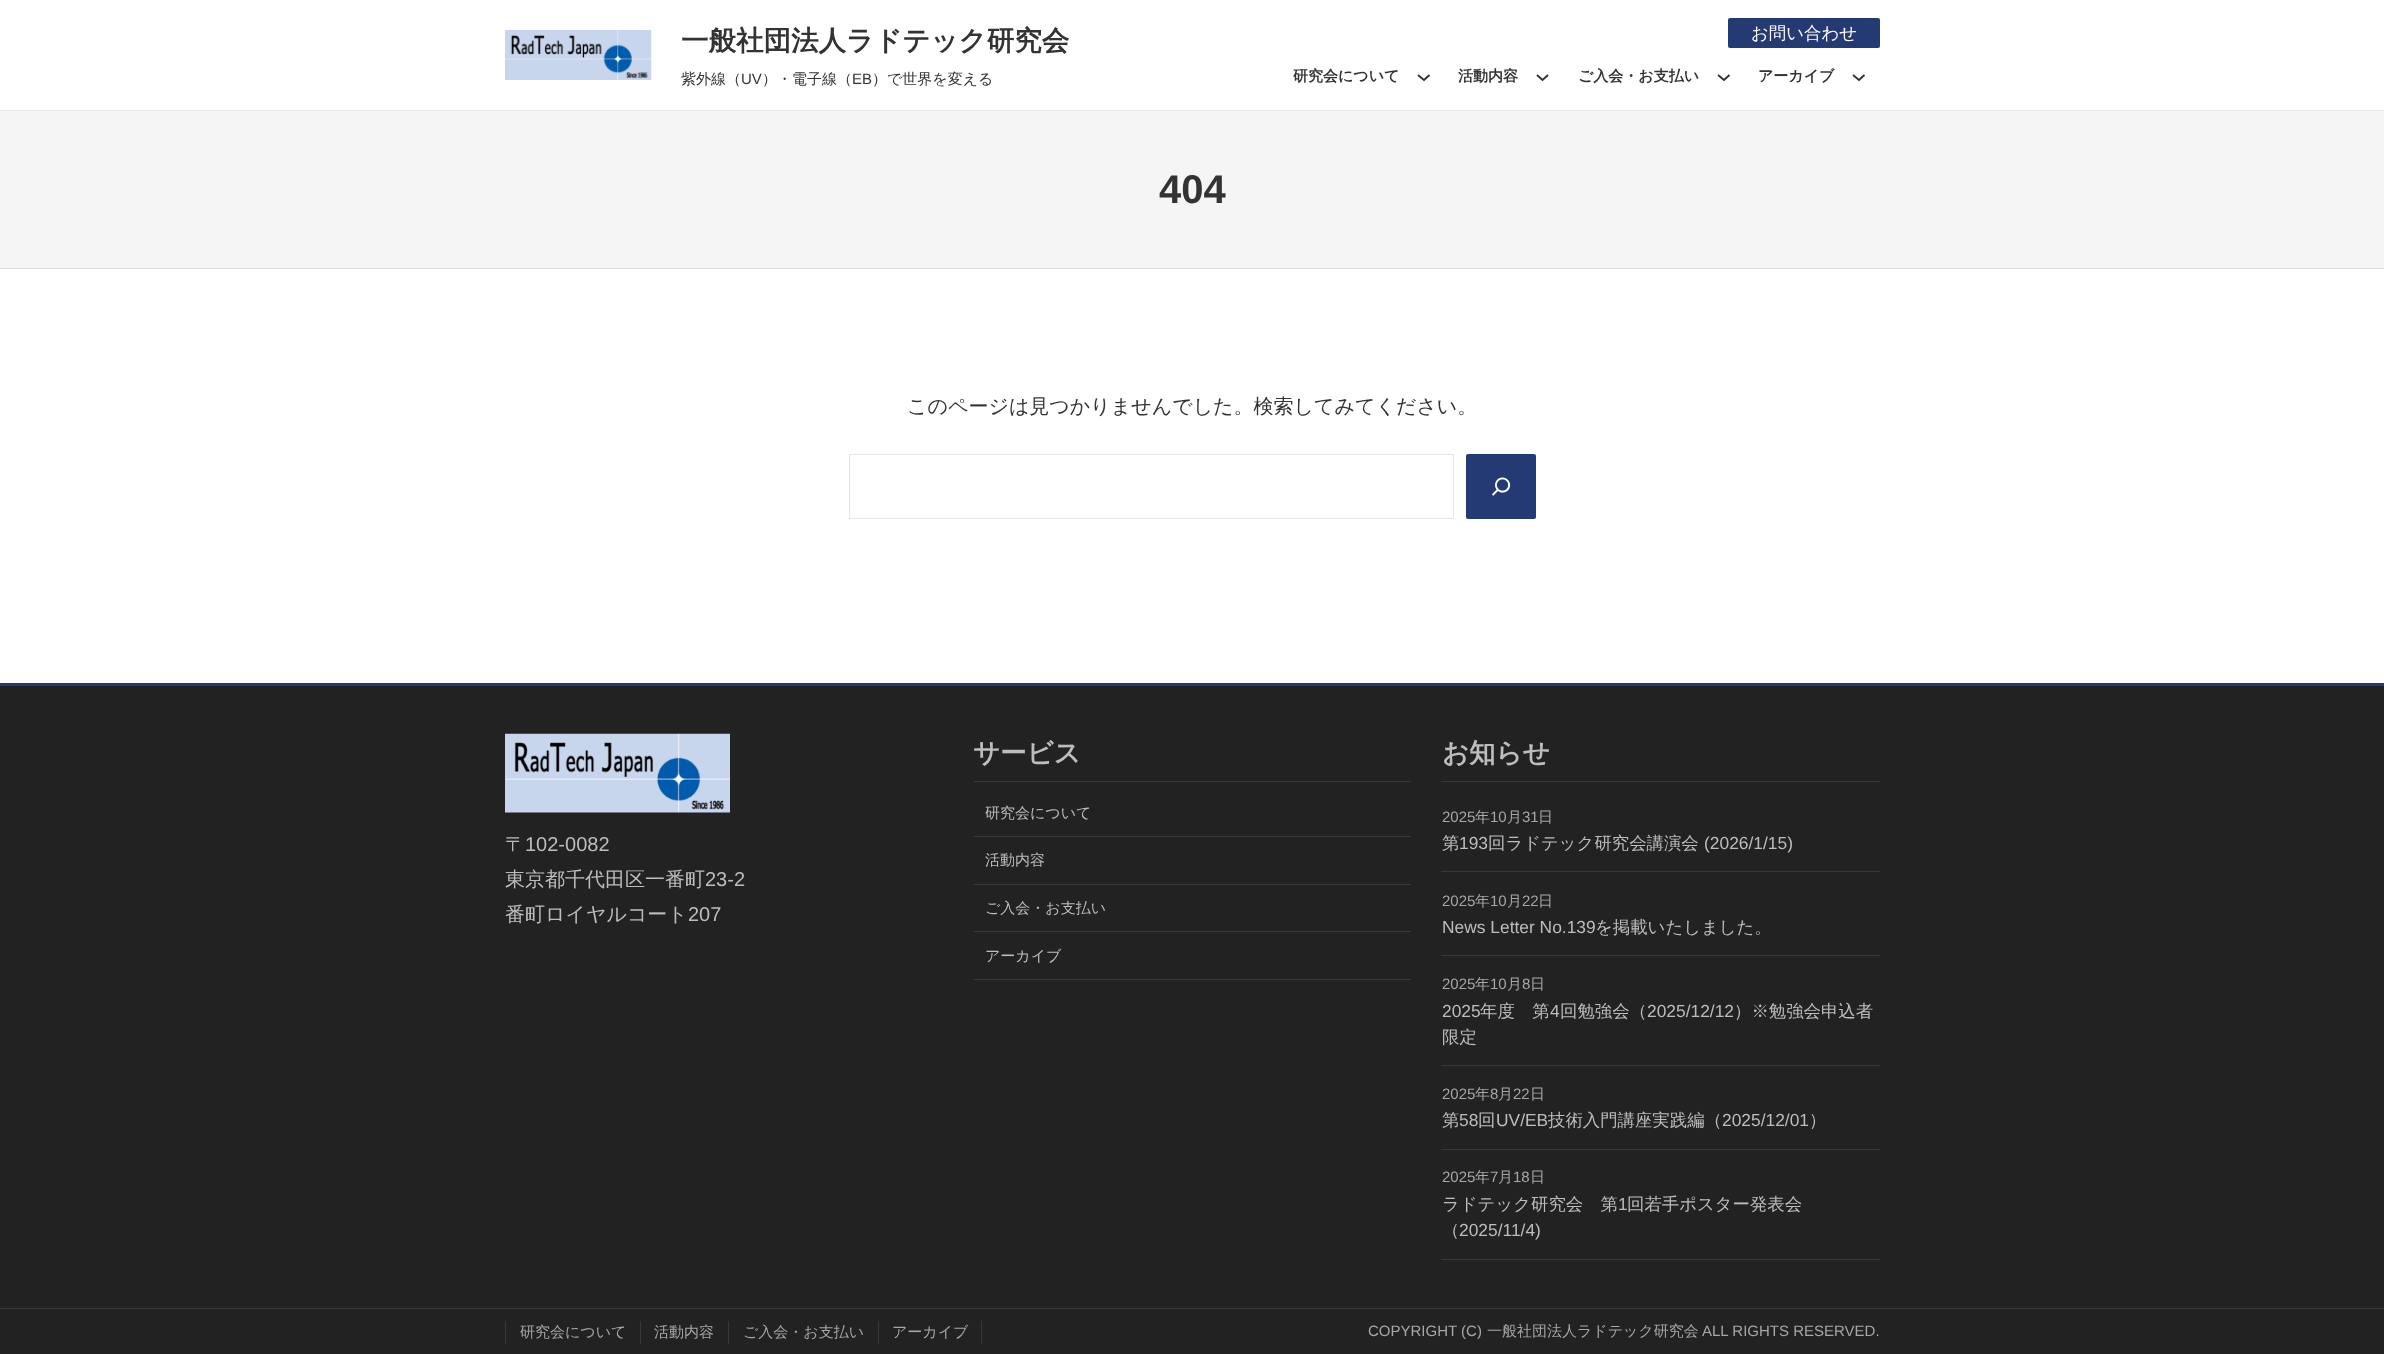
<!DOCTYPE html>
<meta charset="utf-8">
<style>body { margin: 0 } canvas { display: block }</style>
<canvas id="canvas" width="2384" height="1354"></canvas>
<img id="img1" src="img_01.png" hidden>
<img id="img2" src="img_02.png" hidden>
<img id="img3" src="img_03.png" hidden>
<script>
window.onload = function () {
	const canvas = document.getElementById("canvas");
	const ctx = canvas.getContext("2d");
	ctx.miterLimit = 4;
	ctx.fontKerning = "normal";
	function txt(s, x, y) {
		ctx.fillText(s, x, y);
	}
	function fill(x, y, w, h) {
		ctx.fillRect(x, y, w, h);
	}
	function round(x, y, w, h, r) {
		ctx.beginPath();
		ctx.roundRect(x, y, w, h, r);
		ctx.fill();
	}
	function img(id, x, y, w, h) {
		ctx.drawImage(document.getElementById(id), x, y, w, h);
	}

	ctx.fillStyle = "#FFFFFF";
	fill(0, 0, 2384, 1354);
	img("img1", 505, 30, 147, 50);
	ctx.fillStyle = "#233A73";
	round(1728, 18, 152, 30, 2);
	ctx.beginPath();
	ctx.moveTo(1418, 75);
	ctx.lineTo(1424, 80);
	ctx.lineTo(1429.5, 75);
	ctx.strokeStyle = "#333333";
	ctx.lineWidth = 1.9;
	ctx.stroke();
	ctx.beginPath();
	ctx.moveTo(1537, 75);
	ctx.lineTo(1542.5, 80);
	ctx.lineTo(1548, 75);
	ctx.stroke();
	ctx.beginPath();
	ctx.moveTo(1718, 75);
	ctx.lineTo(1724, 80);
	ctx.lineTo(1729.5, 75);
	ctx.stroke();
	ctx.beginPath();
	ctx.moveTo(1853, 75);
	ctx.lineTo(1859, 80);
	ctx.lineTo(1864.5, 75);
	ctx.stroke();
	ctx.fillStyle = "#E6E6E6";
	fill(0, 110, 2384, 1);
	ctx.fillStyle = "#F5F5F5";
	fill(0, 111, 2384, 157);
	ctx.fillStyle = "#DDDDDD";
	fill(0, 268, 2384, 1);
	ctx.strokeStyle = "#E6E6E6";
	ctx.lineWidth = 1;
	ctx.strokeRect(849.5, 454.5, 604, 64);
	ctx.fillStyle = "#233A73";
	round(1466, 454, 70, 65, 2);
	img("img2", 1492, 477, 19, 19);
	ctx.fillStyle = "#222222";
	fill(0, 686, 2384, 668);
	ctx.fillStyle = "#233A73";
	fill(0, 683, 2384, 3);
	img("img3", 505, 733, 225, 80);
	ctx.fillStyle = "#383838";
	fill(974, 781, 437, 1);
	fill(974, 836, 437, 1);
	fill(974, 884, 437, 1);
	fill(974, 931, 437, 1);
	fill(974, 979, 437, 1);
	fill(1441, 781, 439, 1);
	fill(1441, 871, 439, 1);
	fill(1441, 955, 439, 1);
	fill(1441, 1065, 439, 1);
	fill(1441, 1149, 439, 1);
	fill(1441, 1259, 439, 1);
	fill(0, 1308, 2384, 1);
	fill(505, 1321, 1, 23);
	fill(640, 1321, 1, 23);
	fill(728, 1321, 1, 23);
	fill(981, 1321, 1, 23);
	fill(878, 1321, 1, 23);
	ctx.font = "bold 27.5px WenQuanYi Zen Hei";
	ctx.fillStyle = "#333333";
	txt("一般社団法人ラドテック研究会", 681, 50);
	ctx.font = "500 15px WenQuanYi Zen Hei";
	txt("紫外線（", 681, 84);
	ctx.font = "15px Liberation Sans";
	txt("UV", 741, 84);
	ctx.font = "500 15px WenQuanYi Zen Hei";
	txt("）・電子線（", 762, 84);
	ctx.font = "15px Liberation Sans";
	txt("EB", 852, 84);
	ctx.font = "500 15px WenQuanYi Zen Hei";
	txt("）で世界を変える", 872, 84);
	ctx.font = "500 17.4px WenQuanYi Zen Hei";
	ctx.fillStyle = "#FFFFFF";
	txt("お問い合わせ", 1751, 39);
	ctx.font = "bold 15px WenQuanYi Zen Hei";
	ctx.fillStyle = "#333333";
	txt("研究会について", 1293, 81);
	txt("活動内容", 1458, 81);
	txt("ご入会・お支払い", 1578, 81);
	txt("アーカイブ", 1758, 81);
	ctx.font = "bold 40px Liberation Sans";
	txt("404", 1159, 203);
	ctx.font = "500 20px WenQuanYi Zen Hei";
	txt("このページは見つかりませんでした。検索してみてください。", 907, 413);
	ctx.fillStyle = "#BDBDBD";
	txt("〒", 505, 851);
	ctx.font = "20px Liberation Sans";
	txt("102-0082", 525, 851);
	ctx.font = "500 20px WenQuanYi Zen Hei";
	txt("東京都千代田区一番町", 505, 886);
	ctx.font = "20px Liberation Sans";
	txt("23-2", 705, 886);
	ctx.font = "500 20px WenQuanYi Zen Hei";
	txt("番町ロイヤルコート", 505, 921);
	ctx.font = "20px Liberation Sans";
	txt("207", 688, 921);
	ctx.font = "bold 26.5px WenQuanYi Zen Hei";
	txt("サービス", 973, 762);
	ctx.font = "500 15px WenQuanYi Zen Hei";
	txt("研究会について", 985, 818);
	txt("活動内容", 985, 865);
	txt("ご入会・お支払い", 985, 913);
	txt("アーカイブ", 985, 961);
	ctx.font = "bold 26.5px WenQuanYi Zen Hei";
	txt("お知らせ", 1442, 762);
	ctx.font = "15px Liberation Sans";
	ctx.fillStyle = "#A7A7A7";
	txt("2025", 1442, 822);
	ctx.font = "500 15px WenQuanYi Zen Hei";
	txt("年", 1475, 822);
	ctx.font = "15px Liberation Sans";
	txt("10", 1490, 822);
	ctx.font = "500 15px WenQuanYi Zen Hei";
	txt("月", 1507, 822);
	ctx.font = "15px Liberation Sans";
	txt("31", 1522, 822);
	ctx.font = "500 15px WenQuanYi Zen Hei";
	txt("日", 1538, 822);
	ctx.font = "500 17.4px WenQuanYi Zen Hei";
	ctx.fillStyle = "#BDBDBD";
	txt("第", 1442, 849);
	ctx.font = "17.4px Liberation Sans";
	txt("193", 1459, 849);
	ctx.font = "500 17.4px WenQuanYi Zen Hei";
	txt("回ラドテック研究会講演会", 1488, 849);
	ctx.font = "17.4px Liberation Sans";
	txt("(2026/1/15)", 1704, 849);
	ctx.font = "15px Liberation Sans";
	ctx.fillStyle = "#A7A7A7";
	txt("2025", 1442, 906);
	ctx.font = "500 15px WenQuanYi Zen Hei";
	txt("年", 1475, 906);
	ctx.font = "15px Liberation Sans";
	txt("10", 1490, 906);
	ctx.font = "500 15px WenQuanYi Zen Hei";
	txt("月", 1507, 906);
	ctx.font = "15px Liberation Sans";
	txt("22", 1522, 906);
	ctx.font = "500 15px WenQuanYi Zen Hei";
	txt("日", 1538, 906);
	ctx.font = "17.4px Liberation Sans";
	ctx.fillStyle = "#BDBDBD";
	txt("News Letter No.139", 1442, 933);
	ctx.font = "500 17.4px WenQuanYi Zen Hei";
	txt("を掲載いたしました。", 1595, 933);
	ctx.font = "15px Liberation Sans";
	ctx.fillStyle = "#A7A7A7";
	txt("2025", 1442, 989);
	ctx.font = "500 15px WenQuanYi Zen Hei";
	txt("年", 1475, 989);
	ctx.font = "15px Liberation Sans";
	txt("10", 1490, 989);
	ctx.font = "500 15px WenQuanYi Zen Hei";
	txt("月", 1507, 989);
	ctx.font = "15px Liberation Sans";
	txt("8", 1522, 989);
	ctx.font = "500 15px WenQuanYi Zen Hei";
	txt("日", 1530, 989);
	ctx.font = "17.4px Liberation Sans";
	ctx.fillStyle = "#BDBDBD";
	txt("2025", 1442, 1017);
	ctx.font = "500 17.4px WenQuanYi Zen Hei";
	txt("年度　第", 1480, 1017);
	ctx.font = "17.4px Liberation Sans";
	txt("4", 1550, 1017);
	ctx.font = "500 17.4px WenQuanYi Zen Hei";
	txt("回勉強会（", 1560, 1017);
	ctx.font = "17.4px Liberation Sans";
	txt("2025/12/12", 1647, 1017);
	ctx.font = "500 17.4px WenQuanYi Zen Hei";
	txt("）※勉強会申込者", 1734, 1017);
	txt("限定", 1442, 1043);
	ctx.font = "15px Liberation Sans";
	ctx.fillStyle = "#A7A7A7";
	txt("2025", 1442, 1099);
	ctx.font = "500 15px WenQuanYi Zen Hei";
	txt("年", 1475, 1099);
	ctx.font = "15px Liberation Sans";
	txt("8", 1490, 1099);
	ctx.font = "500 15px WenQuanYi Zen Hei";
	txt("月", 1498, 1099);
	ctx.font = "15px Liberation Sans";
	txt("22", 1513, 1099);
	ctx.font = "500 15px WenQuanYi Zen Hei";
	txt("日", 1530, 1099);
	ctx.font = "500 17.4px WenQuanYi Zen Hei";
	ctx.fillStyle = "#BDBDBD";
	txt("第", 1442, 1126);
	ctx.font = "17.4px Liberation Sans";
	txt("58", 1459, 1126);
	ctx.font = "500 17.4px WenQuanYi Zen Hei";
	txt("回", 1478, 1126);
	ctx.font = "17.4px Liberation Sans";
	txt("UV/EB", 1496, 1126);
	ctx.font = "500 17.4px WenQuanYi Zen Hei";
	txt("技術入門講座実践編（", 1548, 1126);
	ctx.font = "17.4px Liberation Sans";
	txt("2025/12/01", 1722, 1126);
	ctx.font = "500 17.4px WenQuanYi Zen Hei";
	txt("）", 1809, 1126);
	ctx.font = "15px Liberation Sans";
	ctx.fillStyle = "#A7A7A7";
	txt("2025", 1442, 1182);
	ctx.font = "500 15px WenQuanYi Zen Hei";
	txt("年", 1475, 1182);
	ctx.font = "15px Liberation Sans";
	txt("7", 1490, 1182);
	ctx.font = "500 15px WenQuanYi Zen Hei";
	txt("月", 1498, 1182);
	ctx.font = "15px Liberation Sans";
	txt("18", 1513, 1182);
	ctx.font = "500 15px WenQuanYi Zen Hei";
	txt("日", 1530, 1182);
	ctx.font = "500 17.4px WenQuanYi Zen Hei";
	ctx.fillStyle = "#BDBDBD";
	txt("ラドテック研究会　第", 1442, 1210);
	ctx.font = "17.4px Liberation Sans";
	txt("1", 1618, 1210);
	ctx.font = "500 17.4px WenQuanYi Zen Hei";
	txt("回若手ポスター発表会", 1627, 1210);
	txt("（", 1442, 1236);
	ctx.font = "17.4px Liberation Sans";
	txt("2025/11/4)", 1459, 1236);
	ctx.font = "500 15px WenQuanYi Zen Hei";
	ctx.fillStyle = "#A7A7A7";
	txt("研究会について", 520, 1337);
	txt("活動内容", 654, 1337);
	txt("ご入会・お支払い", 743, 1337);
	txt("アーカイブ", 892, 1337);
	ctx.font = "15px Liberation Sans";
	txt("COPYRIGHT (C)", 1368, 1336);
	ctx.font = "500 15px WenQuanYi Zen Hei";
	txt("一般社団法人ラドテック研究会", 1487, 1336);
	ctx.font = "15px Liberation Sans";
	txt("ALL RIGHTS RESERVED.", 1702, 1336);
};
</script>
